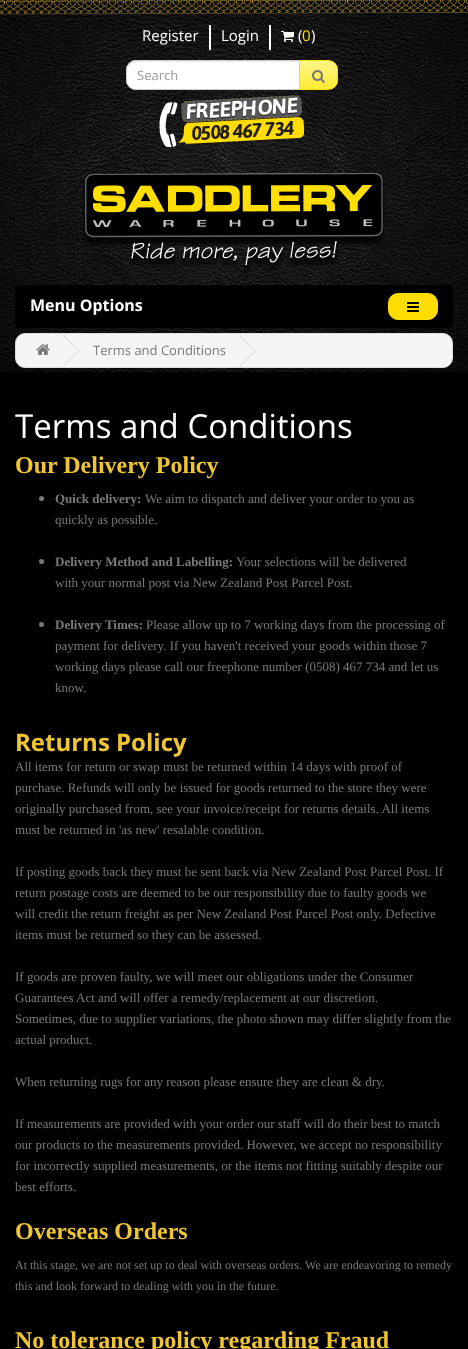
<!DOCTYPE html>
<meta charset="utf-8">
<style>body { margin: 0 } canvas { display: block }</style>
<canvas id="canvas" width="468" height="1349"></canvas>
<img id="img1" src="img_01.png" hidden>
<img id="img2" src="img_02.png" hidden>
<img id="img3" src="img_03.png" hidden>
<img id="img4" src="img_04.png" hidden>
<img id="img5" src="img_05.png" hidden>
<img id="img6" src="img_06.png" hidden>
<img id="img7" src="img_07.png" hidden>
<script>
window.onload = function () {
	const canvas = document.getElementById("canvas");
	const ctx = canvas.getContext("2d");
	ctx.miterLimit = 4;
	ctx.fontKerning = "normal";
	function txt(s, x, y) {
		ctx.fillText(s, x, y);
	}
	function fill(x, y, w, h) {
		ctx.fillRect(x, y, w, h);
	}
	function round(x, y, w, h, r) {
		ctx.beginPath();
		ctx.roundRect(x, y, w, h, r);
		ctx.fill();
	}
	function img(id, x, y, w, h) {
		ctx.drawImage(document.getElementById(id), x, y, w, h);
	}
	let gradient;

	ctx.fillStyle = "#000000";
	fill(0, 0, 468, 1349);
	img("img1", 0, 0, 468, 372);
	ctx.fillStyle = "#FFFFFF";
	fill(209, 25, 2, 25);
	fill(269, 25, 2, 25);
	img("img2", 281, 31, 13, 11);
	ctx.save();
	ctx.beginPath();
	ctx.roundRect(299, 60, 39, 30, [0, 10, 10, 0]);
	ctx.clip();
	gradient = ctx.createLinearGradient(319, 61, 319, 89);
	gradient.addColorStop(0, "#FFF58A");
	gradient.addColorStop(1, "#FCEB32");
	ctx.fillStyle = gradient;
	fill(300, 61, 38, 28);
	ctx.restore();
	ctx.beginPath();
	ctx.roundRect(299.5, 60.5, 38, 29, [0, 9.5, 9.5, 0]);
	ctx.strokeStyle = "#F8E304";
	ctx.stroke();
	ctx.beginPath();
	ctx.roundRect(126, 60, 174, 30, [10, 0, 0, 10]);
	ctx.fill();
	ctx.fillStyle = "#ECECEC";
	ctx.beginPath();
	ctx.moveTo(136, 62);
	ctx.lineTo(299, 62);
	ctx.lineTo(299, 61);
	ctx.lineTo(136, 61);
	ctx.bezierCurveTo(128, 61, 127, 67, 127, 73);
	ctx.lineTo(127, 83);
	ctx.bezierCurveTo(126, 75, 126, 62, 136, 62);
	ctx.closePath();
	ctx.fill();
	ctx.beginPath();
	ctx.roundRect(126.5, 60.5, 173, 29, [9.5, 0, 0, 9.5]);
	ctx.strokeStyle = "#CCCCCC";
	ctx.stroke();
	img("img3", 312, 70, 13, 13);
	img("img4", 159, 95, 145, 52);
	img("img5", 82, 172, 304, 101);
	ctx.fillStyle = "#000000";
	round(15, 285, 438, 43, 4);
	ctx.fillStyle = "#FFDD00";
	ctx.beginPath();
	ctx.roundRect(388.5, 293.5, 49, 26, 9.5);
	ctx.fill();
	ctx.strokeStyle = "#FFDD00";
	ctx.stroke();
	img("img6", 407, 302, 12, 10);
	ctx.fillStyle = "#F5F5F5";
	ctx.beginPath();
	ctx.roundRect(15.5, 333.5, 437, 34, 9.5);
	ctx.fill();
	ctx.strokeStyle = "#DDDDDD";
	ctx.stroke();
	img("img7", 36, 344, 14, 11);
	ctx.fillStyle = "#DDDDDD";
	ctx.beginPath();
	ctx.moveTo(62.5, 335.5);
	ctx.lineTo(63.5, 334.5);
	ctx.lineTo(79.5, 351);
	ctx.lineTo(79, 351.5);
	ctx.closePath();
	ctx.fill();
	ctx.beginPath();
	ctx.moveTo(62.5, 366.5);
	ctx.lineTo(79, 350);
	ctx.lineTo(79.5, 351);
	ctx.lineTo(63.5, 367);
	ctx.closePath();
	ctx.fill();
	ctx.beginPath();
	ctx.moveTo(239, 335.5);
	ctx.lineTo(240, 334.5);
	ctx.lineTo(256, 351);
	ctx.lineTo(255.5, 351.5);
	ctx.closePath();
	ctx.fill();
	ctx.beginPath();
	ctx.moveTo(239, 366.5);
	ctx.lineTo(255.5, 350);
	ctx.lineTo(256, 351);
	ctx.lineTo(240, 367);
	ctx.closePath();
	ctx.fill();
	ctx.fillStyle = "#79797A";
	ctx.beginPath();
	ctx.arc(41.5, 498.5, 2.5, 0, Math.PI * 2);
	ctx.fill();
	ctx.beginPath();
	ctx.arc(41.5, 561.5, 2.5, 0, Math.PI * 2);
	ctx.fill();
	ctx.beginPath();
	ctx.arc(41.5, 624.5, 2.5, 0, Math.PI * 2);
	ctx.fill();
	ctx.font = "15px Open Sans";
	ctx.fillStyle = "#FFFFFF";
	txt("Register", 142, 41);
	txt("Login", 221, 41);
	txt("(", 298, 41);
	ctx.fillStyle = "#F8E304";
	txt("0", 302, 41);
	ctx.fillStyle = "#FFFFFF";
	txt(")", 311, 41);
	ctx.font = "13px Open Sans";
	ctx.fillStyle = "#999999";
	txt("Search", 137, 80);
	ctx.font = "bold 16px Open Sans";
	ctx.fillStyle = "#FFFFFF";
	txt("Menu Options", 30, 311);
	ctx.font = "13px Open Sans";
	ctx.fillStyle = "#79797A";
	txt("Terms and Conditions", 93, 355);
	ctx.font = "33px Open Sans";
	ctx.fillStyle = "#FFFFFF";
	txt("Terms and Conditions", 15, 438);
	ctx.font = "bold 24px Liberation Serif";
	ctx.fillStyle = "#EFC631";
	txt("Our Delivery Policy", 15, 473);
	ctx.font = "bold 13px Liberation Serif";
	ctx.fillStyle = "#79797A";
	txt("Quick delivery:", 55, 503);
	ctx.font = "13px Liberation Serif";
	txt("We aim to dispatch and deliver your order to you as", 145, 503);
	txt("quickly as possible.", 55, 524);
	ctx.font = "bold 13px Liberation Serif";
	txt("Delivery Method and Labelling:", 55, 566);
	ctx.font = "13px Liberation Serif";
	txt("Your selections will be delivered", 236, 566);
	txt("with your normal post via New Zealand Post Parcel Post.", 55, 587);
	ctx.font = "bold 13px Liberation Serif";
	txt("Delivery Times:", 55, 629);
	ctx.font = "13px Liberation Serif";
	txt("Please allow up to 7 working days from the processing of", 146, 629);
	txt("payment for delivery. If you haven't received your goods within those 7", 55, 650);
	txt("working days please call our freephone number (0508) 467 734 and let us", 55, 671);
	txt("know.", 55, 692);
	ctx.font = "bold 24px Open Sans";
	ctx.fillStyle = "#EFC631";
	txt("Returns Policy", 15, 751);
	ctx.font = "13px Liberation Serif";
	ctx.fillStyle = "#79797A";
	txt("All items for return or swap must be returned within 14 days with proof of", 15, 771);
	txt("purchase. Refunds will only be issued for goods returned to the store they were", 15, 792);
	txt("originally purchased from, see your invoice/receipt for returns details. All items", 15, 813);
	txt("must be returned in 'as new' resalable condition.", 15, 834);
	txt("If posting goods back they must be sent back via New Zealand Post Parcel Post. If", 15, 876);
	txt("return postage costs are deemed to be our responsibility due to faulty goods we", 15, 897);
	txt("will credit the return freight as per New Zealand Post Parcel Post only. Defective", 15, 918);
	txt("items must be returned so they can be assessed.", 15, 939);
	txt("If goods are proven faulty, we will meet our obligations under the Consumer", 15, 981);
	txt("Guarantees Act and will offer a remedy/replacement at our discretion.", 15, 1002);
	txt("Sometimes, due to supplier variations, the photo shown may differ slightly from the", 15, 1023);
	txt("actual product.", 15, 1044);
	txt("When returning rugs for any reason please ensure they are clean & dry.", 15, 1086);
	txt("If measurements are provided with your order our staff will do their best to match", 15, 1128);
	txt("our products to the measurements provided. However, we accept no responsibility", 15, 1149);
	txt("for incorrectly supplied measurements, or the items not fitting suitably despite our", 15, 1170);
	txt("best efforts.", 15, 1191);
	ctx.font = "bold 24px Liberation Serif";
	ctx.fillStyle = "#EFC631";
	txt("Overseas Orders", 15, 1239);
	ctx.font = "12px Liberation Serif";
	ctx.fillStyle = "#79797A";
	txt("At this stage, we are not set up to deal with overseas orders. We are endeavoring to remedy", 15, 1269);
	txt("this and look forward to dealing with you in the future.", 15, 1290);
	ctx.font = "bold 24px Liberation Serif";
	ctx.fillStyle = "#EFC631";
	txt("No tolerance policy regarding Fraud", 15, 1348);
};
</script>
